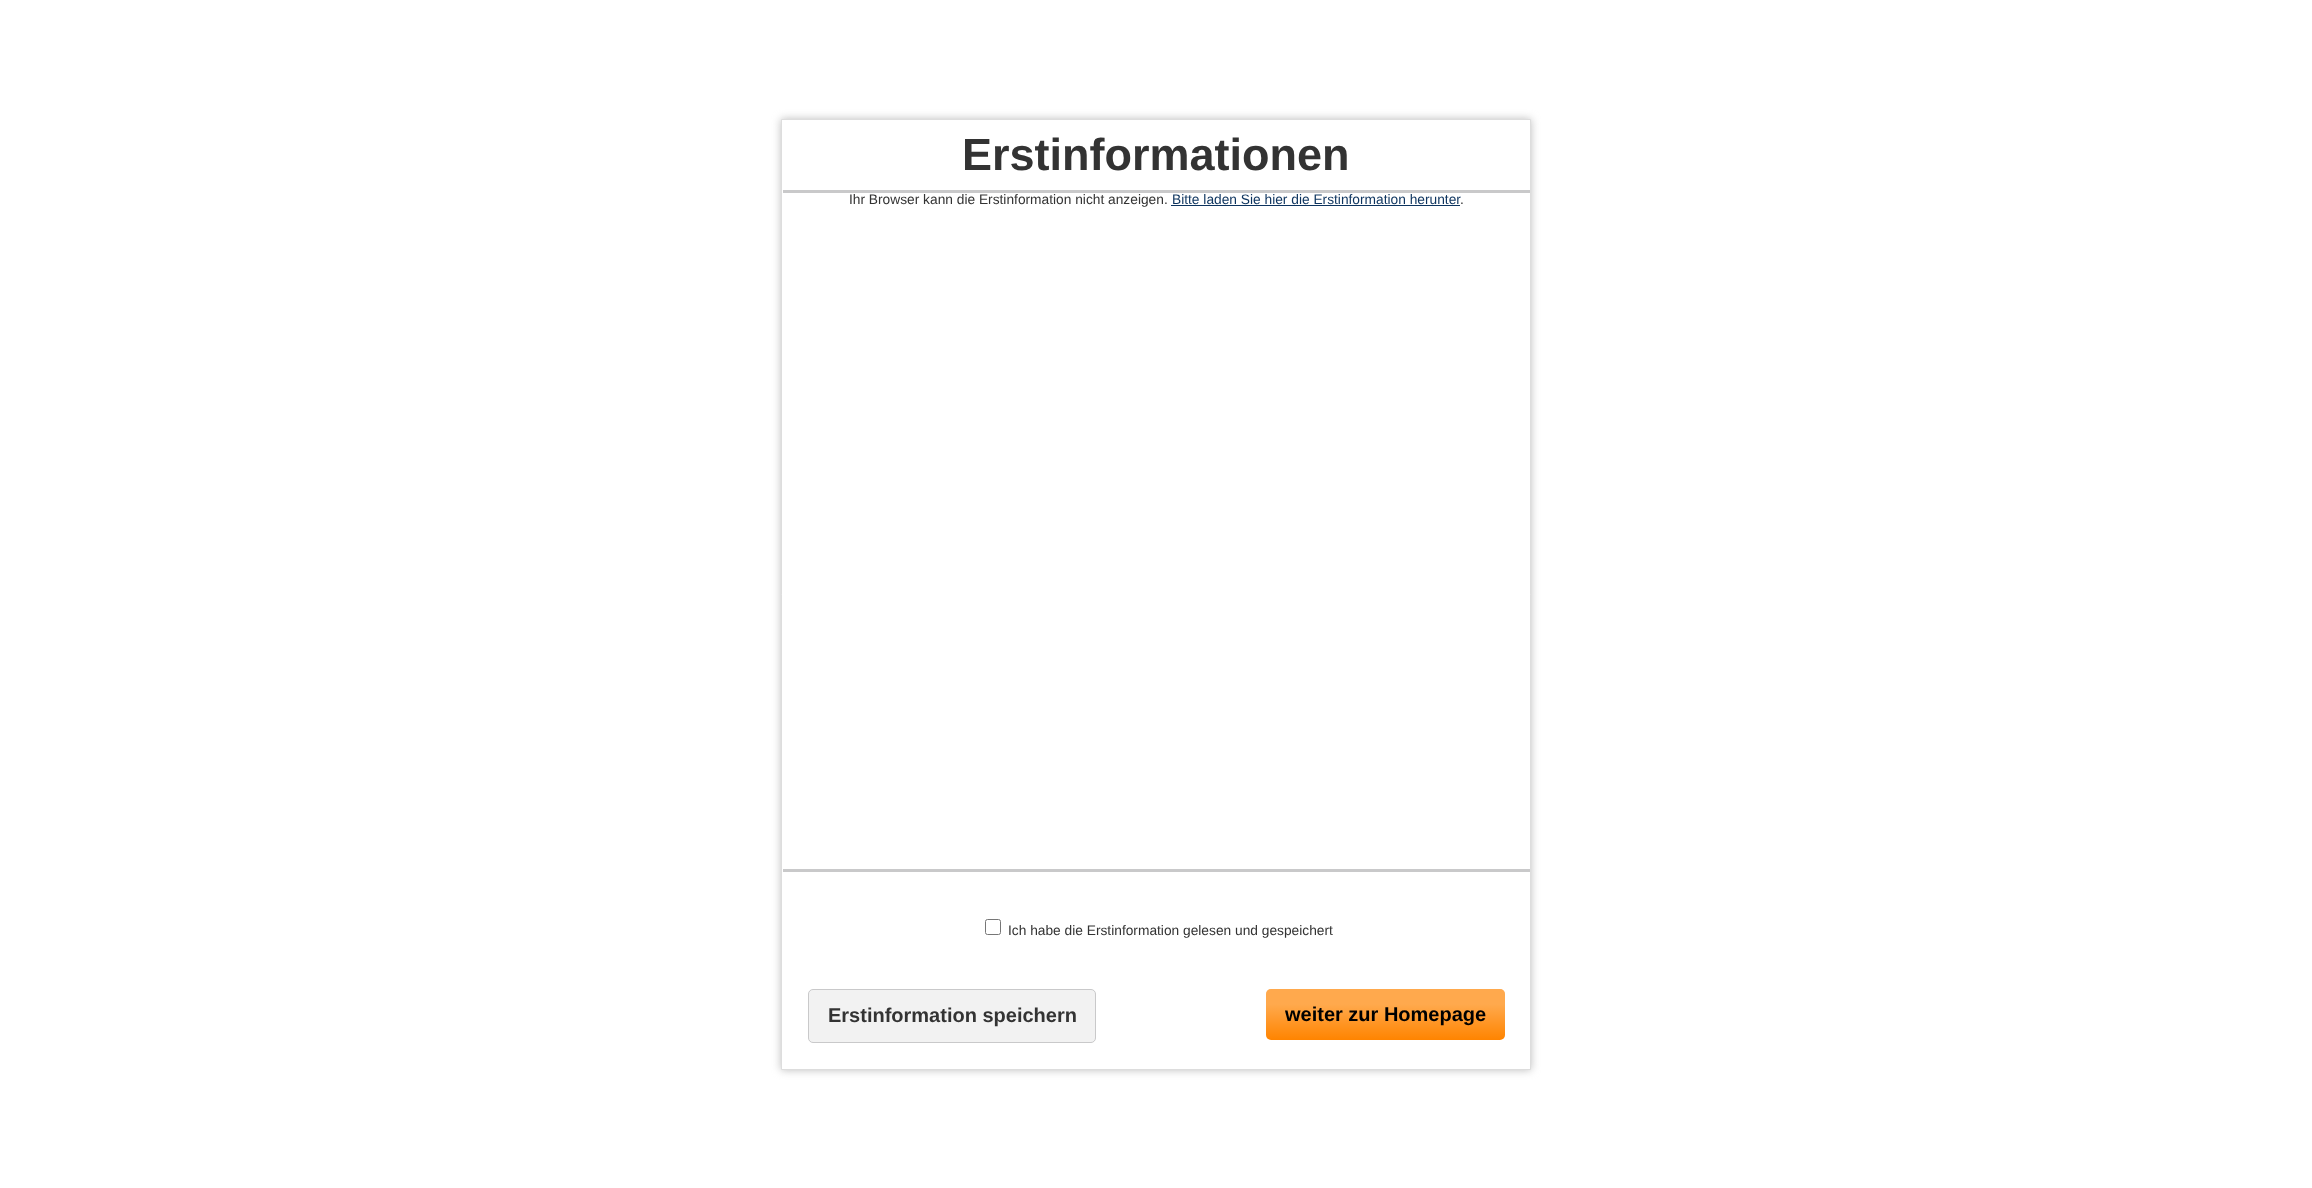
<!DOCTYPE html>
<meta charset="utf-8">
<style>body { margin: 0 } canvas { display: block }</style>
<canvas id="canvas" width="2312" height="1188"></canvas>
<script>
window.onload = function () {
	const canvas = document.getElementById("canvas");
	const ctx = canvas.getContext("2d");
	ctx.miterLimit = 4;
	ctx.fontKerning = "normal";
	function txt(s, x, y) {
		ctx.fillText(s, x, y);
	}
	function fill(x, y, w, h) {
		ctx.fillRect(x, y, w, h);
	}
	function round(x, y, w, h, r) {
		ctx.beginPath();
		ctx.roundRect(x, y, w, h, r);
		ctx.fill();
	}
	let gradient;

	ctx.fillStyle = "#FFFFFF";
	fill(0, 0, 2312, 1188);
	ctx.fillStyle = "#BBBBBB";
	ctx.filter = "blur(4.5px)";
	ctx.beginPath();
	ctx.rect(781, 119, 750, 951);
	ctx.fill();
	ctx.filter = "none";
	ctx.fillStyle = "#FFFFFF";
	ctx.beginPath();
	ctx.rect(781.5, 119.5, 749, 950);
	ctx.fill();
	ctx.strokeStyle = "#DDDDDD";
	ctx.stroke();
	ctx.fillStyle = "#C9C9CA";
	fill(783, 190, 747, 3);
	ctx.fillStyle = "#0C335E";
	fill(1171, 205, 289, 1);
	ctx.fillStyle = "#C9C9CA";
	fill(783, 869, 747, 3);
	ctx.beginPath();
	ctx.roundRect(985.5, 919.5, 15, 15, 2);
	ctx.strokeStyle = "#767676";
	ctx.stroke();
	ctx.fillStyle = "#F2F2F2";
	ctx.beginPath();
	ctx.roundRect(808.5, 989.5, 287, 53, 4.5);
	ctx.fill();
	ctx.strokeStyle = "#C9C9CA";
	ctx.stroke();
	ctx.fillStyle = "#FF8400";
	round(1266, 989, 239, 51, 5);
	gradient = ctx.createLinearGradient(1386, 989, 1386, 1040);
	gradient.addColorStop(0.3, "rgba(255, 255, 255, 0.3)");
	gradient.addColorStop(1, "rgba(255, 255, 255, 0)");
	ctx.fillStyle = gradient;
	round(1266, 989, 239, 51, 5);
	ctx.font = "bold 45px Liberation Sans";
	ctx.fillStyle = "#333333";
	txt("Erstinformationen", 962, 170);
	ctx.font = "13.75px Liberation Sans";
	txt("Ihr Browser kann die Erstinformation nicht anzeigen.", 849, 204);
	ctx.fillStyle = "#0C335E";
	txt("Bitte laden Sie hier die Erstinformation herunter", 1172, 204);
	ctx.fillStyle = "#333333";
	txt(".", 1460, 204);
	txt("Ich habe die Erstinformation gelesen und gespeichert", 1008, 935);
	ctx.font = "bold 20px Liberation Sans";
	txt("Erstinformation speichern", 828, 1022);
	ctx.fillStyle = "#000000";
	txt("weiter zur Homepage", 1285, 1021);
};
</script>
